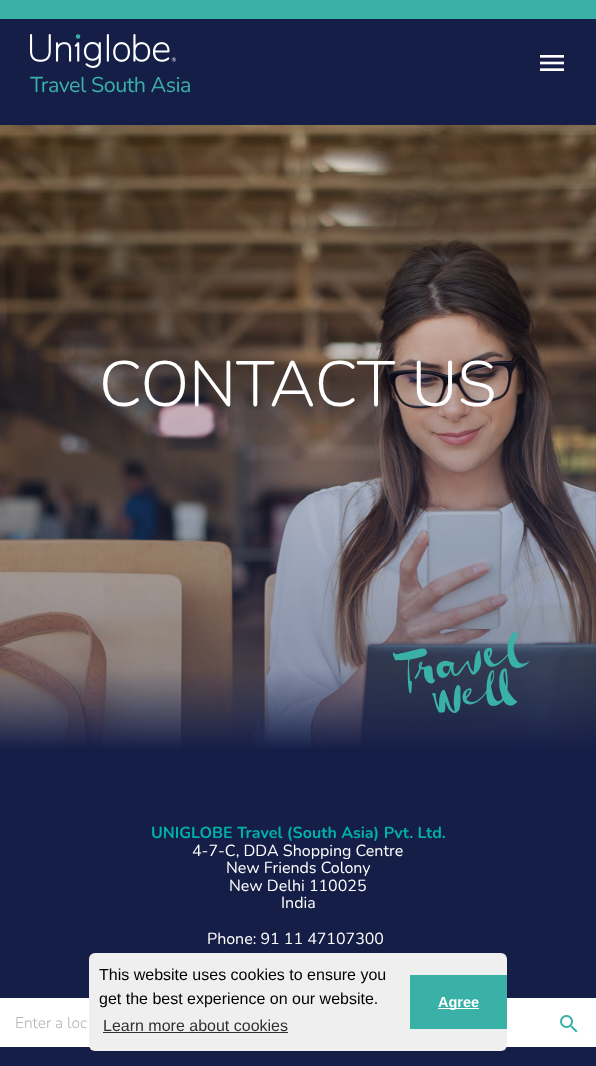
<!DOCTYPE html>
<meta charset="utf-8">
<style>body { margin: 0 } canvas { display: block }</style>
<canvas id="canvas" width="596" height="1066"></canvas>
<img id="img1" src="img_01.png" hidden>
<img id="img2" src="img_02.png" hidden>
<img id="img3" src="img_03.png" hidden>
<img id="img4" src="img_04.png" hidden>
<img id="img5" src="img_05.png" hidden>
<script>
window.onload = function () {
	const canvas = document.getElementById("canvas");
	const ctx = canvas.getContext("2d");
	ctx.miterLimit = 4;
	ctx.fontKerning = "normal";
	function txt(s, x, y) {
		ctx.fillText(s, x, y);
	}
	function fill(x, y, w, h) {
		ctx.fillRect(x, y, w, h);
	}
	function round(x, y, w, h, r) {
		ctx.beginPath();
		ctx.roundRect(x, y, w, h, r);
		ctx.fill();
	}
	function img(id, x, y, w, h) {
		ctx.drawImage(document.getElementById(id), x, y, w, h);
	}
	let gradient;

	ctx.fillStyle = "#151E47";
	fill(0, 0, 596, 1066);
	ctx.fillStyle = "#3AB1A7";
	fill(0, 0, 596, 19);
	img("img1", 540, 55, 24, 16);
	img("img2", 30, 34, 146, 34);
	img("img3", 0, 125, 596, 624);
	gradient = ctx.createLinearGradient(298, 125, 298, 750);
	gradient.addColorStop(0, "rgba(45, 55, 94, 0)");
	gradient.addColorStop(0.87, "rgba(45, 55, 94, 0.5)");
	gradient.addColorStop(1, "#151E47");
	ctx.fillStyle = gradient;
	fill(0, 153, 596, 596);
	img("img4", 393, 632, 137, 81);
	ctx.fillStyle = "#FFFFFF";
	fill(0, 998, 596, 49);
	img("img5", 560, 1015, 18, 18);
	ctx.fillStyle = "#EFEFEF";
	round(89, 953, 418, 98, 6);
	ctx.fillStyle = "#303030";
	fill(103, 1032, 185, 1);
	ctx.fillStyle = "#3AB1A7";
	fill(410, 975, 97, 54);
	ctx.fillStyle = "#FFFFFF";
	fill(438, 1008, 41, 1);
	ctx.letterSpacing = "-0.5px";
	ctx.font = "21.5px Nunito";
	ctx.fillStyle = "#3AB1A7";
	txt("Travel South Asia", 30, 92);
	ctx.letterSpacing = "0px";
	ctx.font = "300 64px Nunito";
	ctx.fillStyle = "#FFFFFF";
	txt("CONTACT US", 99, 406);
	ctx.font = "bold 16px Nunito";
	ctx.fillStyle = "#00B0AB";
	txt("UNIGLOBE Travel (South Asia) Pvt. Ltd.", 151, 838);
	ctx.font = "16px Nunito";
	ctx.fillStyle = "#FFFFFF";
	txt("4-7-C, DDA Shopping Centre", 192, 856);
	txt("New Friends Colony", 226, 873);
	txt("New Delhi 110025", 229, 891);
	txt("India", 281, 908);
	txt("Phone: 91 11 47107300", 207, 944);
	ctx.font = "300 15.5px Nunito";
	ctx.fillStyle = "#B5B5B5";
	txt("Enter a loc", 15, 1028);
	ctx.font = "16px Liberation Sans";
	ctx.fillStyle = "#000000";
	txt("This website uses cookies to ensure you", 99, 980);
	txt("get the best experience on our website.", 99, 1004);
	ctx.fillStyle = "#303030";
	txt("Learn more about cookies", 103, 1031);
	ctx.font = "bold 14.5px Liberation Sans";
	ctx.fillStyle = "#FFFFFF";
	txt("Agree", 438, 1007);
};
</script>
